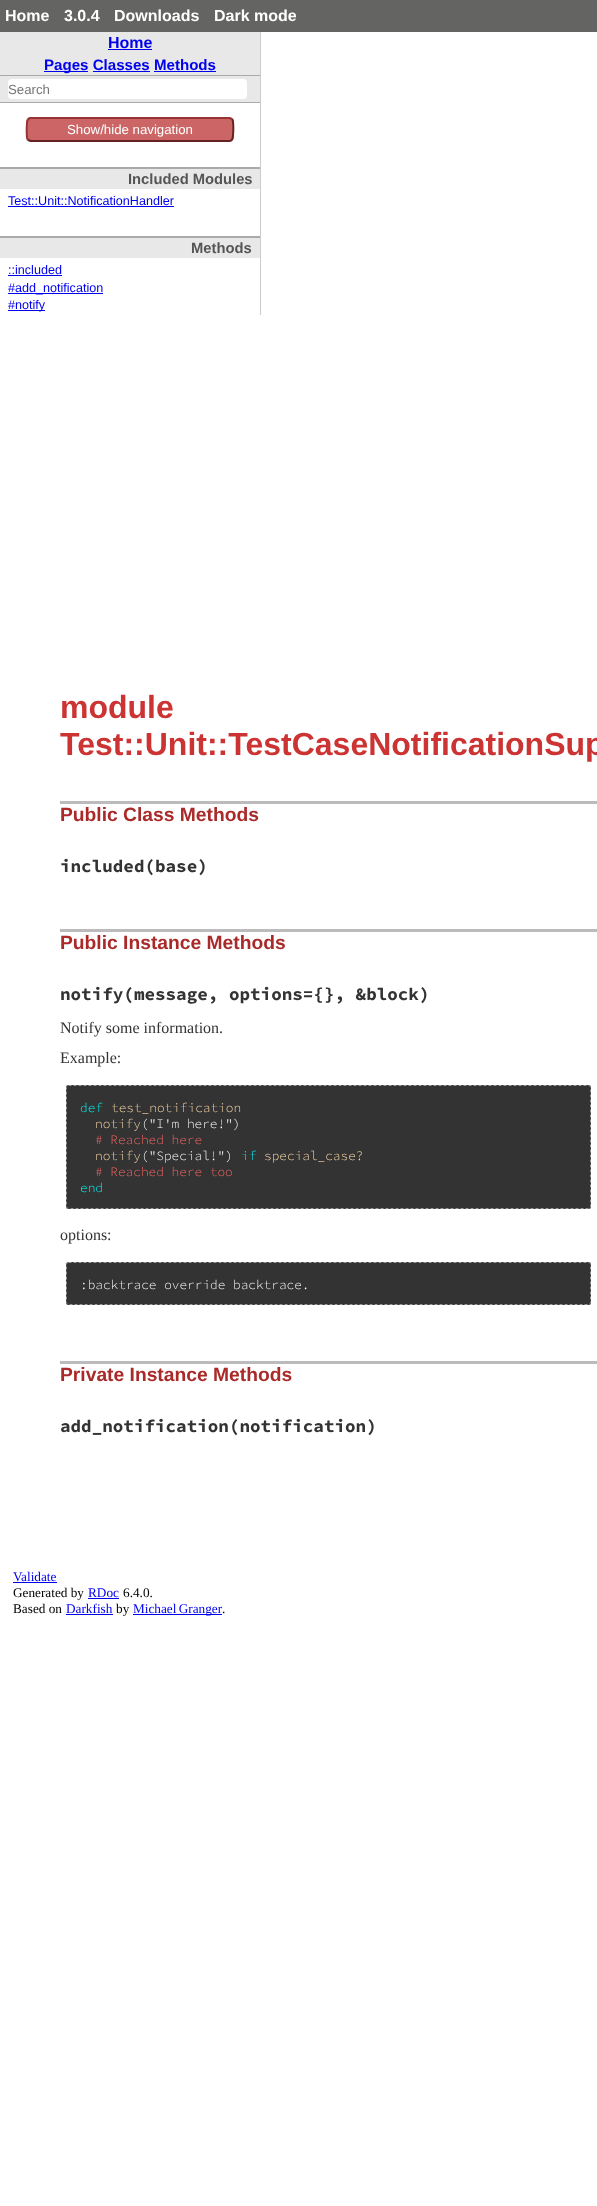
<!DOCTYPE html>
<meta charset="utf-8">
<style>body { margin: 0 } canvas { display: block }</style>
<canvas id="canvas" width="597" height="2206"></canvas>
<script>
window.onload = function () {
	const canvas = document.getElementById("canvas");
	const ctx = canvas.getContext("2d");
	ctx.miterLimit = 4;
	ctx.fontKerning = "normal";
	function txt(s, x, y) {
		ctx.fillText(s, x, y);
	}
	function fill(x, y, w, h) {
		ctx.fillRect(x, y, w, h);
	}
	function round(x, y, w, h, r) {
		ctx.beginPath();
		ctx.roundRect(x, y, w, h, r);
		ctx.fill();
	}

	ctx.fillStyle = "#FFFFFF";
	fill(0, 0, 597, 2206);
	ctx.fillStyle = "#646462";
	fill(0, 0, 597, 32);
	ctx.fillStyle = "#CCCCCC";
	fill(260, 32, 1, 283);
	ctx.fillStyle = "#E8E8E8";
	fill(0, 32, 260, 43);
	ctx.fillStyle = "#0000EE";
	fill(108, 49, 44, 1);
	fill(44, 71, 44, 1);
	fill(93, 71, 57, 1);
	fill(154, 71, 62, 1);
	ctx.fillStyle = "#E8E8E8";
	fill(0, 76, 260, 26);
	ctx.fillStyle = "#AAAAAA";
	fill(0, 75, 260, 1);
	fill(0, 102, 260, 1);
	ctx.fillStyle = "#FFFFFF";
	round(8, 79, 239, 20, 4);
	ctx.fillStyle = "#CC6666";
	round(26, 117, 208, 25, 5);
	ctx.beginPath();
	ctx.moveTo(232, 119);
	ctx.bezierCurveTo(234, 121, 233.5, 137.5, 232, 139.5);
	ctx.bezierCurveTo(231.5, 140.5, 230, 141, 229, 141);
	ctx.lineTo(31, 141);
	ctx.lineTo(28, 140);
	ctx.strokeStyle = "#662222";
	ctx.lineWidth = 2;
	ctx.stroke();
	ctx.beginPath();
	ctx.moveTo(28, 140);
	ctx.bezierCurveTo(26, 138, 26.5, 121.5, 28, 119.5);
	ctx.bezierCurveTo(28.5, 118.5, 30, 118, 31, 118);
	ctx.lineTo(229, 118);
	ctx.lineTo(232, 119);
	ctx.strokeStyle = "#993333";
	ctx.stroke();
	ctx.fillStyle = "#AAAAAA";
	fill(0, 167, 260, 2);
	ctx.fillStyle = "#E8E8E8";
	fill(0, 169, 260, 20);
	ctx.fillStyle = "#0000EE";
	fill(8, 206, 166, 1);
	ctx.fillStyle = "#AAAAAA";
	fill(0, 236, 260, 2);
	ctx.fillStyle = "#E8E8E8";
	fill(0, 238, 260, 20);
	ctx.fillStyle = "#0000EE";
	fill(8, 275, 54, 1);
	fill(8, 293, 95, 1);
	fill(8, 310, 37, 1);
	ctx.fillStyle = "#BBBBBB";
	fill(60, 801, 537, 3);
	fill(60, 929, 537, 3);
	ctx.fillStyle = "#333333";
	round(66, 1085, 525, 124, 2.5);
	ctx.beginPath();
	ctx.moveTo(68.5, 1085.5);
	ctx.lineTo(588.5, 1085.5);
	ctx.bezierCurveTo(589.5, 1085.5, 590.5, 1086.5, 590.5, 1087.5);
	ctx.lineTo(590.5, 1206.5);
	ctx.bezierCurveTo(590.5, 1207.5, 589.5, 1208.5, 588.5, 1208.5);
	ctx.lineTo(68.5, 1208.5);
	ctx.bezierCurveTo(67.5, 1208.5, 66.5, 1207.5, 66.5, 1206.5);
	ctx.lineTo(66.5, 1087.5);
	ctx.bezierCurveTo(66.5, 1086.5, 67.5, 1085.5, 68.5, 1085.5);
	ctx.closePath();
	ctx.strokeStyle = "#999999";
	ctx.lineWidth = 1;
	ctx.setLineDash([3, 2]);
	ctx.stroke();
	round(66, 1262, 525, 43, 2.5);
	ctx.beginPath();
	ctx.moveTo(68.5, 1262.5);
	ctx.lineTo(588.5, 1262.5);
	ctx.bezierCurveTo(589.5, 1262.5, 590.5, 1263.5, 590.5, 1264.5);
	ctx.lineTo(590.5, 1302.5);
	ctx.bezierCurveTo(590.5, 1303.5, 589.5, 1304.5, 588.5, 1304.5);
	ctx.lineTo(68.5, 1304.5);
	ctx.bezierCurveTo(67.5, 1304.5, 66.5, 1303.5, 66.5, 1302.5);
	ctx.lineTo(66.5, 1264.5);
	ctx.bezierCurveTo(66.5, 1263.5, 67.5, 1262.5, 68.5, 1262.5);
	ctx.closePath();
	ctx.stroke();
	ctx.fillStyle = "#BBBBBB";
	fill(60, 1361, 537, 3);
	ctx.fillStyle = "#0000EE";
	fill(13, 1582, 44, 1);
	fill(88, 1598, 31, 1);
	fill(66, 1614, 47, 1);
	fill(133, 1614, 89, 1);
	ctx.font = "bold 16px Liberation Sans";
	ctx.fillStyle = "#FFFFFF";
	txt("Home", 5, 21);
	txt("3.0.4", 64, 21);
	txt("Downloads", 114, 21);
	txt("Dark mode", 214, 21);
	ctx.fillStyle = "#0000EE";
	txt("Home", 108, 48);
	ctx.font = "bold 15.1px Liberation Sans";
	txt("Pages Classes Methods", 44, 70);
	ctx.font = "13.25px Liberation Sans";
	ctx.fillStyle = "#757575";
	txt("Search", 8, 94);
	ctx.fillStyle = "#FFFFFF";
	txt("Show/hide navigation", 67, 134);
	ctx.font = "bold 14.75px Liberation Sans";
	ctx.fillStyle = "#555555";
	txt("Included Modules", 128, 184);
	ctx.font = "12.6px Liberation Sans";
	ctx.fillStyle = "#0000EE";
	txt("Test::Unit::NotificationHandler", 8, 205);
	ctx.font = "bold 14.75px Liberation Sans";
	ctx.fillStyle = "#555555";
	txt("Methods", 191, 253);
	ctx.font = "12.6px Liberation Sans";
	ctx.fillStyle = "#0000EE";
	txt("::included", 8, 274);
	txt("#add_notification", 8, 292);
	txt("#notify", 8, 309);
	ctx.font = "bold 32px Liberation Sans";
	ctx.fillStyle = "#CC3333";
	txt("module", 60, 718);
	txt("Test::Unit::TestCaseNotificationSup", 60, 755);
	ctx.font = "bold 19.25px Liberation Sans";
	ctx.fillStyle = "#AA2929";
	txt("Public Class Methods", 60, 821);
	ctx.font = "bold 17.6px Source Code Pro";
	ctx.fillStyle = "#333333";
	txt("included(base)", 60, 872);
	ctx.font = "bold 19.25px Liberation Sans";
	ctx.fillStyle = "#AA2929";
	txt("Public Instance Methods", 60, 949);
	ctx.font = "bold 17.6px Source Code Pro";
	ctx.fillStyle = "#333333";
	txt("notify(message, options={}, &block)", 60, 1000);
	ctx.font = "16px Liberation Serif";
	txt("Notify some information.", 60, 1033);
	txt("Example:", 60, 1063);
	ctx.font = "300 12.75px Source Code Pro";
	ctx.fillStyle = "#00FFFF";
	txt("def", 80, 1112);
	ctx.fillStyle = "#FFDEAD";
	txt("test_notification", 111, 1112);
	txt("notify", 95, 1128);
	ctx.fillStyle = "#FFFFFF";
	txt("(\"I'm here!\")", 141, 1128);
	ctx.fillStyle = "#FF6666";
	txt("# Reached here", 95, 1144);
	ctx.fillStyle = "#FFDEAD";
	txt("notify", 95, 1160);
	ctx.fillStyle = "#FFFFFF";
	txt("(\"Special!\")", 141, 1160);
	ctx.fillStyle = "#00FFFF";
	txt("if", 241, 1160);
	ctx.fillStyle = "#FFDEAD";
	txt("special_case?", 264, 1160);
	ctx.fillStyle = "#FF6666";
	txt("# Reached here too", 95, 1176);
	ctx.fillStyle = "#00FFFF";
	txt("end", 80, 1192);
	ctx.font = "16px Liberation Serif";
	ctx.fillStyle = "#333333";
	txt("options:", 60, 1240);
	ctx.font = "300 12.75px Source Code Pro";
	ctx.fillStyle = "#FFFFFF";
	txt(":backtrace override backtrace.", 80, 1289);
	ctx.font = "bold 19.25px Liberation Sans";
	ctx.fillStyle = "#AA2929";
	txt("Private Instance Methods", 60, 1381);
	ctx.font = "bold 17.6px Source Code Pro";
	ctx.fillStyle = "#333333";
	txt("add_notification(notification)", 60, 1432);
	ctx.font = "13.25px Liberation Serif";
	ctx.fillStyle = "#0000EE";
	txt("Validate", 13, 1581);
	ctx.fillStyle = "#000000";
	txt("Generated by", 13, 1597);
	ctx.fillStyle = "#0000EE";
	txt("RDoc", 88, 1597);
	ctx.fillStyle = "#000000";
	txt("6.4.0.", 123, 1597);
	txt("Based on", 13, 1613);
	ctx.fillStyle = "#0000EE";
	txt("Darkfish", 66, 1613);
	ctx.fillStyle = "#000000";
	txt("by", 116, 1613);
	ctx.wordSpacing = "-1px";
	ctx.fillStyle = "#0000EE";
	txt("Michael Granger", 133, 1613);
	ctx.wordSpacing = "0px";
	ctx.fillStyle = "#000000";
	txt(".", 222, 1613);
};
</script>
